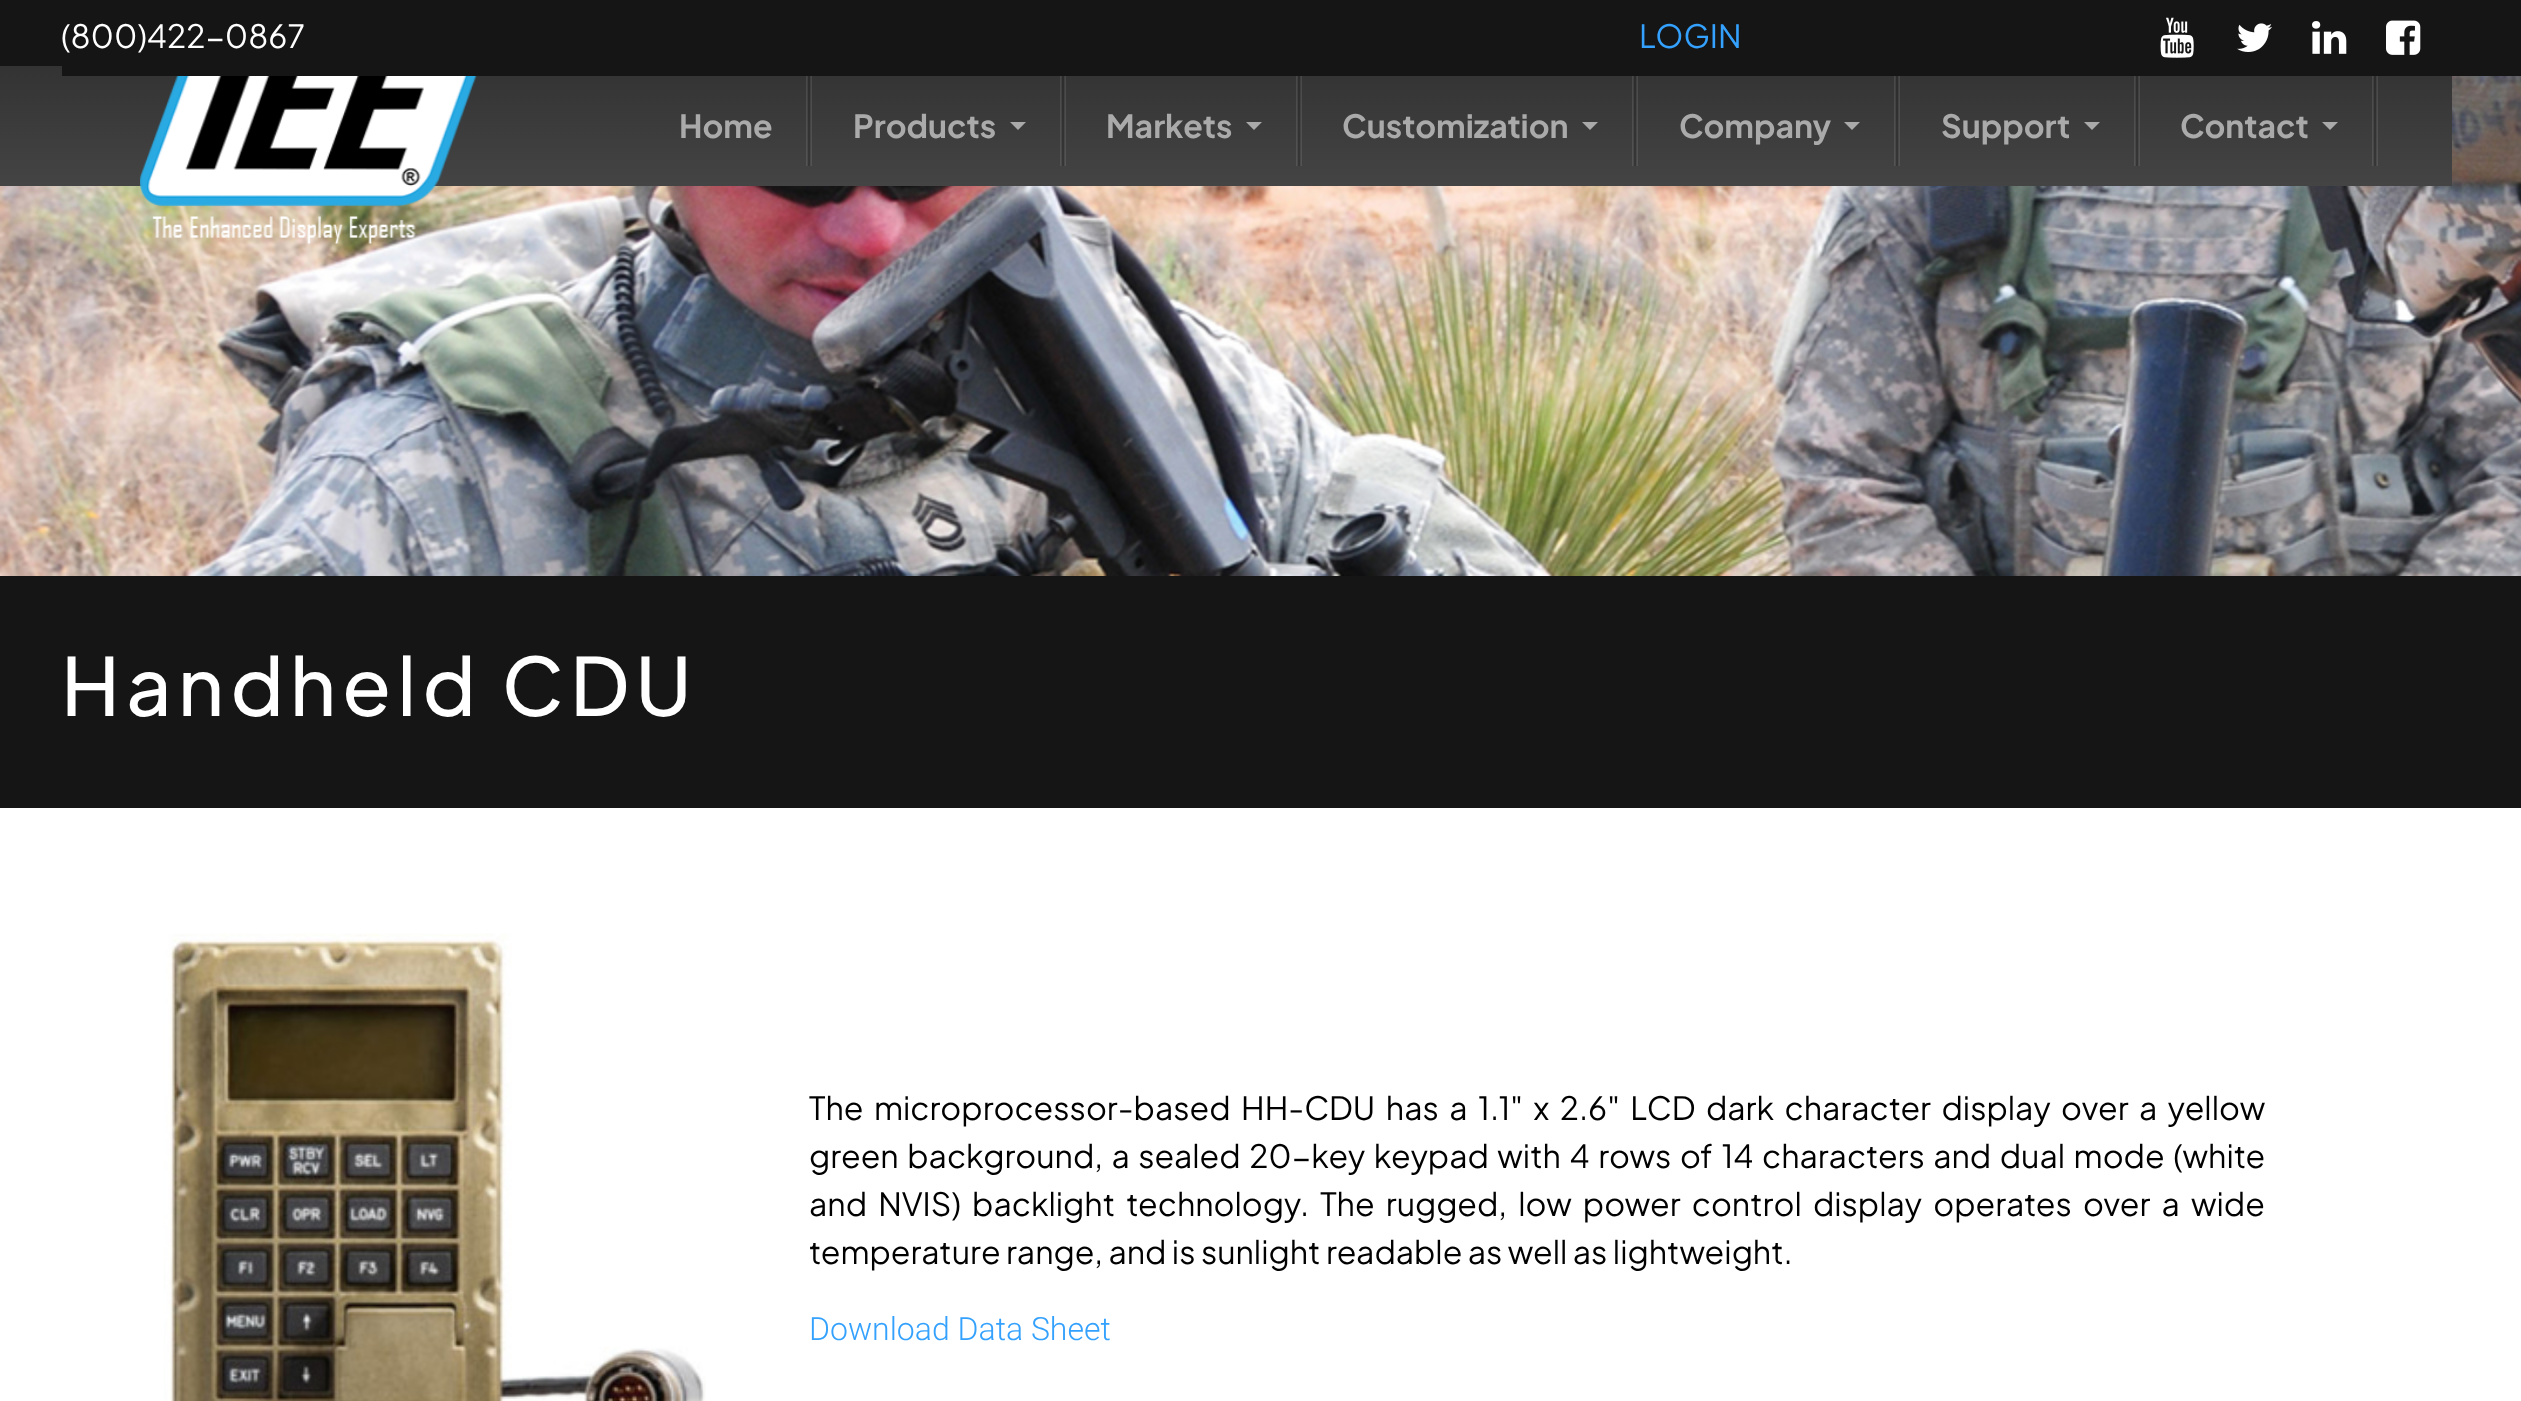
<!DOCTYPE html>
<meta charset="utf-8">
<style>body { margin: 0 } canvas { display: block }</style>
<canvas id="canvas" width="2521" height="1401"></canvas>
<img id="img1" src="img_05.png" hidden>
<img id="img2" src="img_01.png" hidden>
<img id="img3" src="img_02.png" hidden>
<img id="img4" src="img_03.png" hidden>
<img id="img5" src="img_04.png" hidden>
<img id="img6" src="img_06.png" hidden>
<img id="img7" src="img_07.png" hidden>
<img id="img8" src="img_08.png" hidden>
<script>
window.onload = function () {
	const canvas = document.getElementById("canvas");
	const ctx = canvas.getContext("2d");
	ctx.miterLimit = 4;
	ctx.fontKerning = "normal";
	function txt(s, x, y) {
		ctx.fillText(s, x, y);
	}
	function fill(x, y, w, h) {
		ctx.fillRect(x, y, w, h);
	}
	function img(id, x, y, w, h) {
		ctx.drawImage(document.getElementById(id), x, y, w, h);
	}
	let gradient;

	ctx.fillStyle = "#151515";
	fill(0, 0, 2521, 1401);
	img("img1", 0, 76, 2521, 500);
	gradient = ctx.createLinearGradient(1226, 66, 1226, 186);
	gradient.addColorStop(0, "#333333");
	gradient.addColorStop(1, "#444444");
	ctx.fillStyle = gradient;
	fill(0, 66, 2452, 120);
	ctx.fillStyle = "#151515";
	fill(62, 66, 2390, 10);
	img("img2", 2160, 17, 34, 41);
	img("img3", 2237, 23, 35, 29);
	img("img4", 2312, 21, 35, 33);
	img("img5", 2386, 20, 35, 35);
	img("img6", 140, 76, 337, 168);
	img("img7", 806, 76, 6, 90);
	img("img7", 1060, 76, 6, 90);
	ctx.fillStyle = "#AAAAAA";
	ctx.beginPath();
	ctx.moveTo(1010, 122);
	ctx.lineTo(1026, 122);
	ctx.lineTo(1018, 130);
	ctx.closePath();
	ctx.fill();
	img("img7", 1296, 76, 6, 90);
	ctx.beginPath();
	ctx.moveTo(1246, 122);
	ctx.lineTo(1262, 122);
	ctx.lineTo(1254, 130);
	ctx.closePath();
	ctx.fill();
	img("img7", 1632, 76, 6, 90);
	ctx.beginPath();
	ctx.moveTo(1582, 122);
	ctx.lineTo(1598, 122);
	ctx.lineTo(1590, 130);
	ctx.closePath();
	ctx.fill();
	img("img7", 1894, 76, 6, 90);
	ctx.beginPath();
	ctx.moveTo(1844, 122);
	ctx.lineTo(1860, 122);
	ctx.lineTo(1852, 130);
	ctx.closePath();
	ctx.fill();
	img("img7", 2134, 76, 6, 90);
	ctx.beginPath();
	ctx.moveTo(2084, 122);
	ctx.lineTo(2100, 122);
	ctx.lineTo(2092, 130);
	ctx.closePath();
	ctx.fill();
	img("img7", 2372, 76, 6, 90);
	ctx.beginPath();
	ctx.moveTo(2322, 122);
	ctx.lineTo(2338, 122);
	ctx.lineTo(2330, 130);
	ctx.closePath();
	ctx.fill();
	ctx.fillStyle = "#FFFFFF";
	fill(0, 808, 2521, 593);
	img("img8", 164, 933, 542, 468);
	ctx.font = "32px Plus Jakarta Sans";
	txt("(800)422-0867", 61, 48);
	ctx.fillStyle = "#33A1FD";
	txt("LOGIN", 1639, 48);
	ctx.font = "bold 32px Plus Jakarta Sans";
	ctx.fillStyle = "#AAAAAA";
	txt("Home", 679, 138);
	txt("Products", 853, 138);
	txt("Markets", 1106, 138);
	txt("Customization", 1342, 138);
	txt("Company", 1679, 138);
	txt("Support", 1941, 138);
	txt("Contact", 2180, 138);
	ctx.letterSpacing = "6px";
	ctx.font = "500 80px Plus Jakarta Sans";
	ctx.fillStyle = "#FFFFFF";
	txt("Handheld CDU", 61, 716);
	ctx.letterSpacing = "0px";
	ctx.wordSpacing = "5.1px";
	ctx.font = "32px Plus Jakarta Sans";
	ctx.fillStyle = "#000000";
	txt("The microprocessor-based HH-CDU has a 1.1\" x 2.6\" LCD dark character display over a yellow", 809, 1120);
	ctx.wordSpacing = "3.1px";
	txt("green background, a sealed 20-key keypad with 4 rows of 14 characters and dual mode (white", 809, 1168);
	ctx.wordSpacing = "5.75px";
	txt("and NVIS) backlight technology. The rugged, low power control display operates over a wide", 809, 1216);
	ctx.wordSpacing = "0px";
	txt("temperature range, and is sunlight readable as well as lightweight.", 809, 1264);
	ctx.font = "300 32px Roboto";
	ctx.fillStyle = "#33A1FD";
	txt("Download Data Sheet", 809, 1340);
};
</script>
